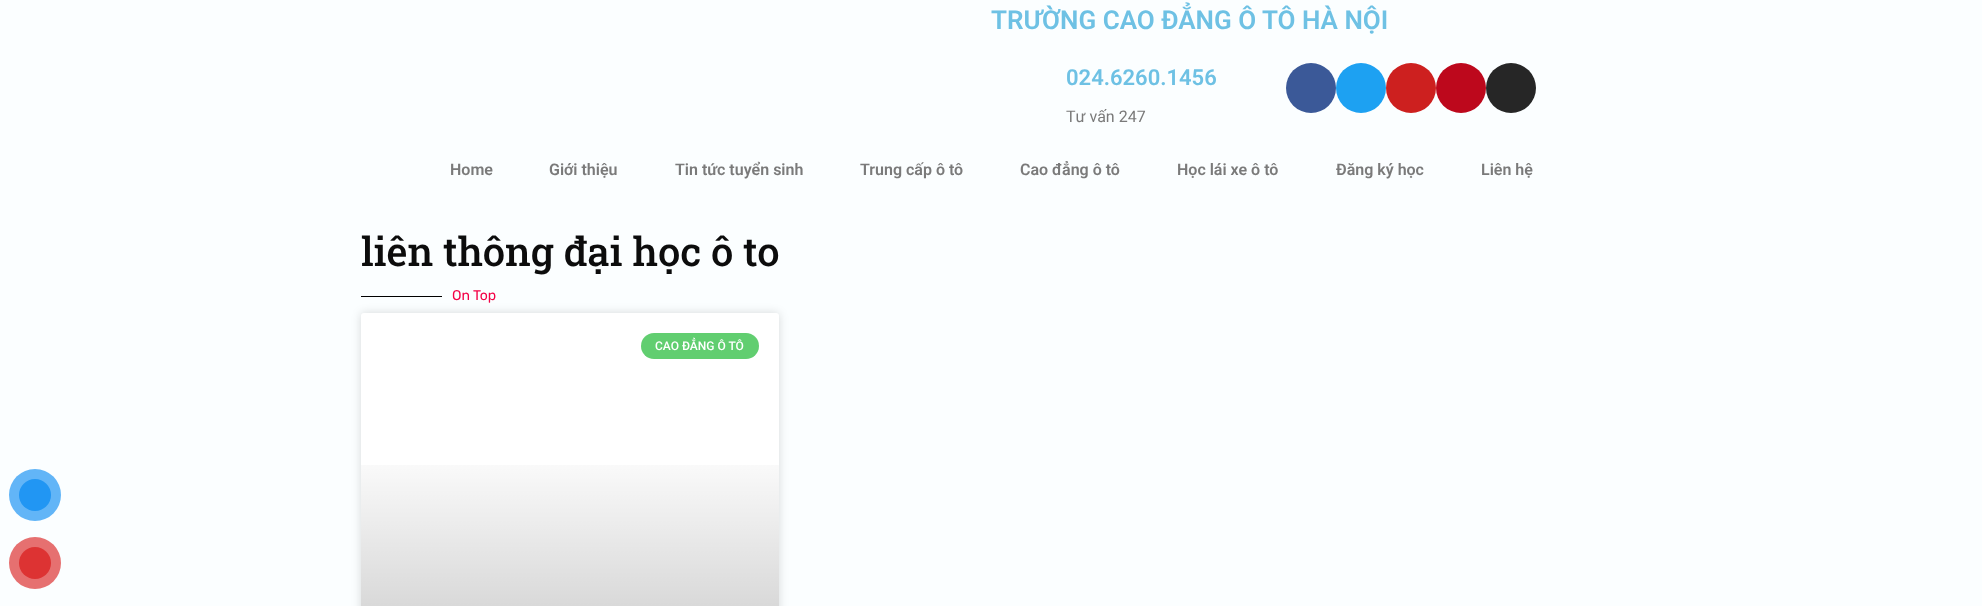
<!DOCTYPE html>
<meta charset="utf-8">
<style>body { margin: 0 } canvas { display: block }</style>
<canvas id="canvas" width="1982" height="606"></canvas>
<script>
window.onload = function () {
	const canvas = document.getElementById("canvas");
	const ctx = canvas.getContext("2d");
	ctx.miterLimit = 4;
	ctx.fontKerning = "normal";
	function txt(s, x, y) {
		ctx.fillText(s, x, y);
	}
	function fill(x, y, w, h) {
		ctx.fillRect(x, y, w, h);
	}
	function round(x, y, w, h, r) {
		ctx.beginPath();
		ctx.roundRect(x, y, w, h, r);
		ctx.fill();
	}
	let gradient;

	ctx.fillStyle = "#FBFEFF";
	fill(0, 0, 1982, 606);
	ctx.fillStyle = "#3B5998";
	ctx.beginPath();
	ctx.arc(1311, 88, 25, 0, Math.PI * 2);
	ctx.fill();
	ctx.fillStyle = "#1DA1F2";
	ctx.beginPath();
	ctx.arc(1361, 88, 25, 0, Math.PI * 2);
	ctx.fill();
	ctx.fillStyle = "#CD201F";
	ctx.beginPath();
	ctx.arc(1411, 88, 25, 0, Math.PI * 2);
	ctx.fill();
	ctx.fillStyle = "#BD081C";
	ctx.beginPath();
	ctx.arc(1461, 88, 25, 0, Math.PI * 2);
	ctx.fill();
	ctx.fillStyle = "#262626";
	ctx.beginPath();
	ctx.arc(1511, 88, 25, 0, Math.PI * 2);
	ctx.fill();
	ctx.fillStyle = "#000000";
	fill(361, 296, 81, 1);
	ctx.fillStyle = "rgba(0, 0, 0, 0.15)";
	ctx.filter = "blur(5px)";
	ctx.beginPath();
	ctx.roundRect(361, 313, 418, 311, 3);
	ctx.fill();
	ctx.filter = "none";
	ctx.fillStyle = "#FFFFFF";
	round(361, 313, 418, 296, 3);
	ctx.fillStyle = "#61CE70";
	round(641, 333, 118, 26, 13);
	gradient = ctx.createLinearGradient(570, 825, 570, 313);
	gradient.addColorStop(0, "rgba(0, 0, 0, 0.35)");
	gradient.addColorStop(0.75, "rgba(0, 0, 0, 0)");
	ctx.fillStyle = gradient;
	fill(361, 465, 418, 141);
	ctx.fillStyle = "#62B5F7";
	ctx.beginPath();
	ctx.arc(35, 495, 26, 0, Math.PI * 2);
	ctx.fill();
	ctx.fillStyle = "#2196F3";
	ctx.beginPath();
	ctx.arc(35, 495, 16, 0, Math.PI * 2);
	ctx.fill();
	ctx.fillStyle = "#E67070";
	ctx.beginPath();
	ctx.arc(35, 563, 26, 0, Math.PI * 2);
	ctx.fill();
	ctx.fillStyle = "#DD3333";
	ctx.beginPath();
	ctx.arc(35, 563, 16, 0, Math.PI * 2);
	ctx.fill();
	ctx.font = "600 26px Roboto";
	ctx.fillStyle = "#6EC1E4";
	txt("TRƯỜNG CAO ĐẲNG Ô TÔ HÀ NỘI", 991, 29);
	ctx.font = "600 22px Roboto";
	txt("024.6260.1456", 1066, 85);
	ctx.font = "16px Roboto";
	ctx.fillStyle = "#7A7A7A";
	txt("Tư vấn 247", 1066, 122);
	ctx.font = "600 16px Roboto";
	txt("Home", 450, 175);
	txt("Giới thiệu", 549, 175);
	txt("Tin tức tuyển sinh", 675, 175);
	txt("Trung cấp ô tô", 860, 175);
	txt("Cao đẳng ô tô", 1020, 175);
	txt("Học lái xe ô tô", 1177, 175);
	txt("Đăng ký học", 1336, 175);
	txt("Liên hệ", 1481, 175);
	ctx.font = "500 40px Roboto Slab";
	ctx.fillStyle = "#0C0C0C";
	txt("liên thông đại học ô to", 361, 266);
	ctx.font = "14px Rubik";
	ctx.fillStyle = "#F40045";
	txt("On Top", 452, 300);
	ctx.font = "500 12px Roboto";
	ctx.fillStyle = "#FFFFFF";
	txt("CAO ĐẲNG Ô TÔ", 655, 350);
};
</script>
